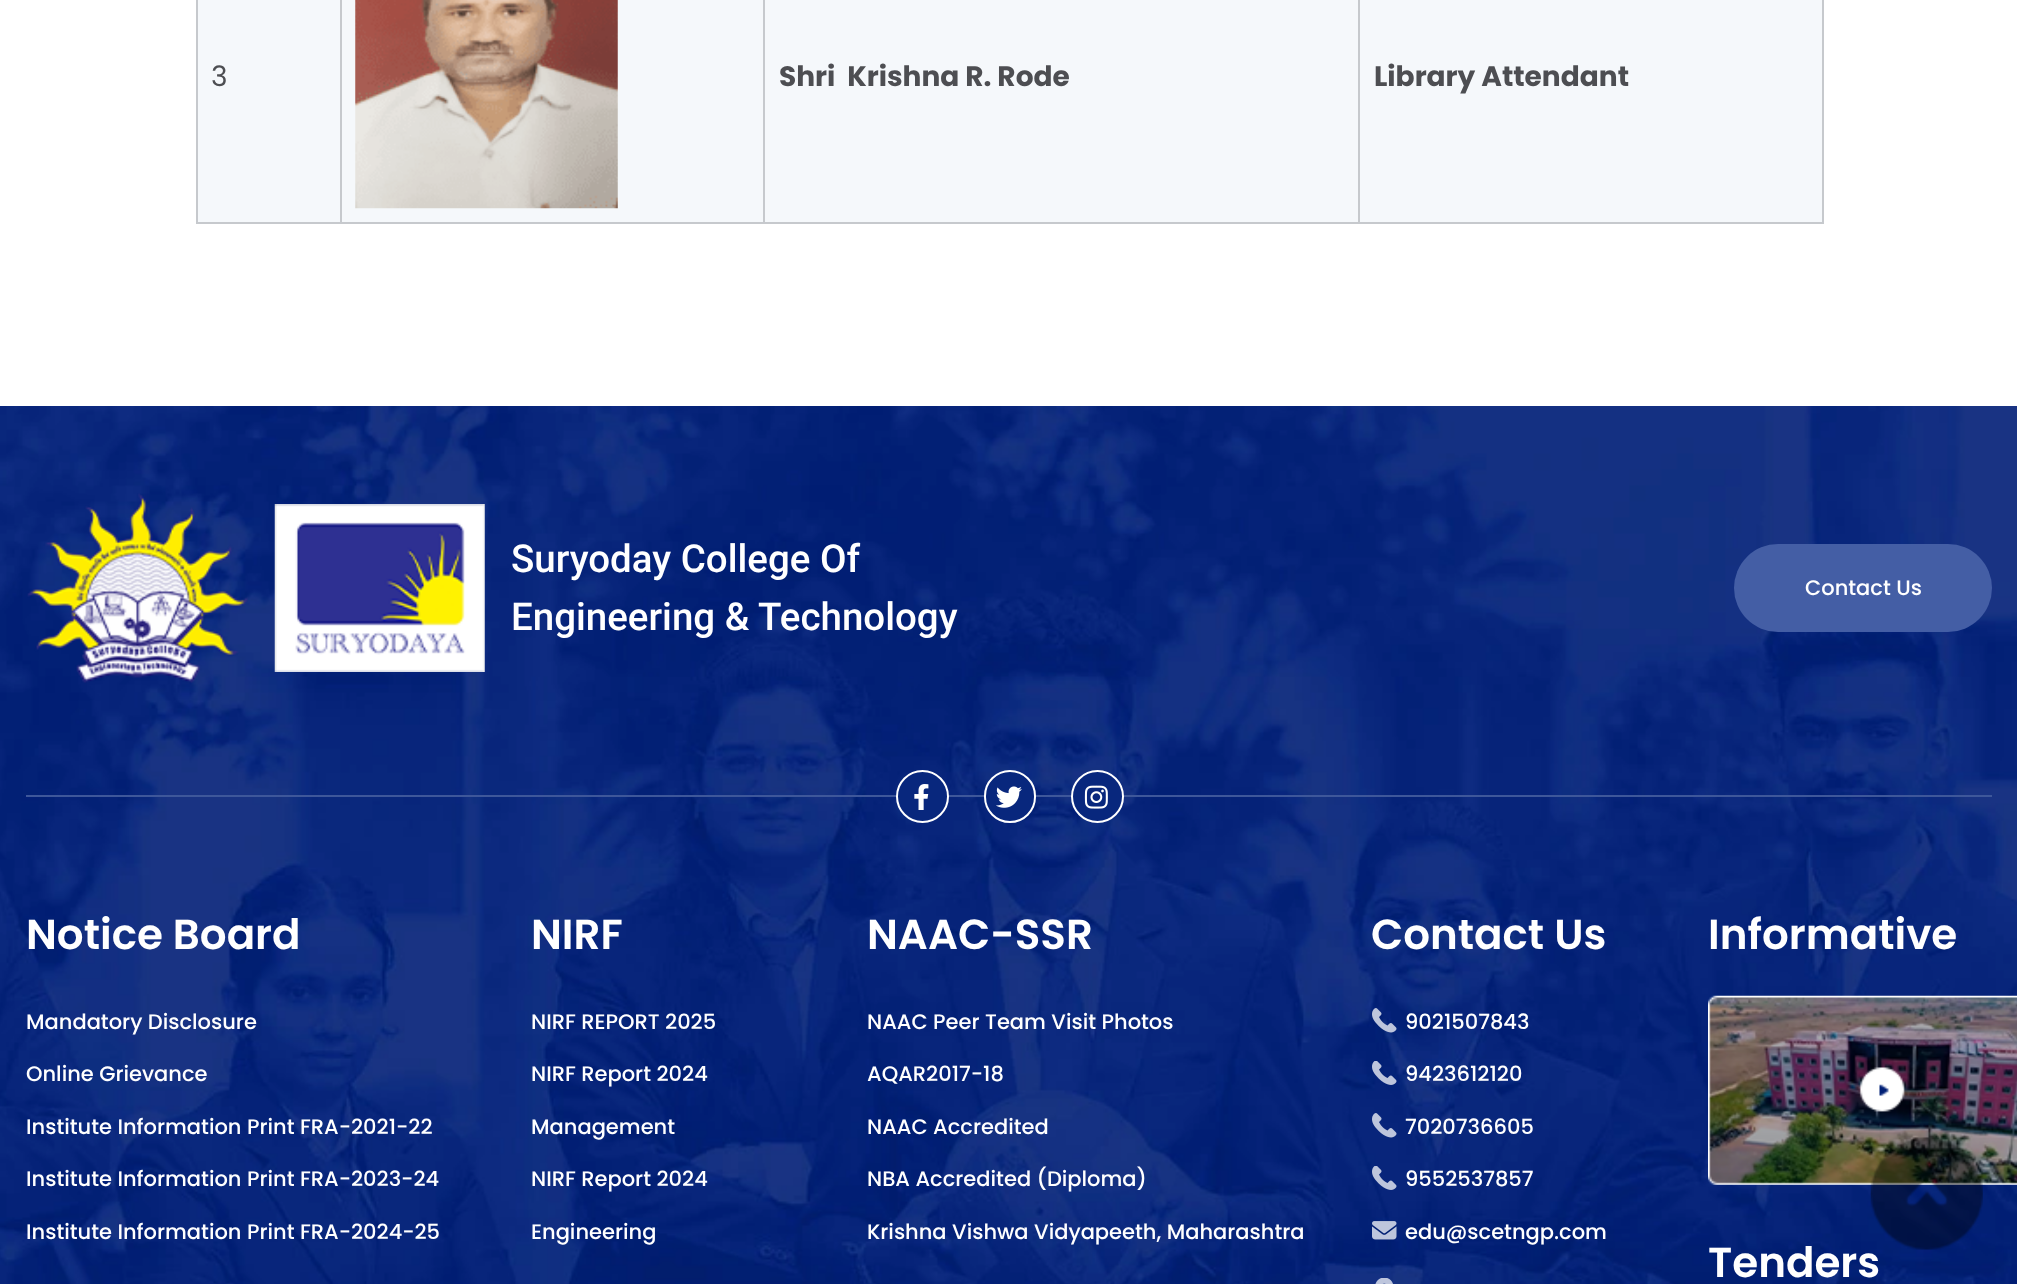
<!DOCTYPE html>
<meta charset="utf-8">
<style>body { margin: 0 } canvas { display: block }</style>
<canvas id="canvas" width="2017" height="1284"></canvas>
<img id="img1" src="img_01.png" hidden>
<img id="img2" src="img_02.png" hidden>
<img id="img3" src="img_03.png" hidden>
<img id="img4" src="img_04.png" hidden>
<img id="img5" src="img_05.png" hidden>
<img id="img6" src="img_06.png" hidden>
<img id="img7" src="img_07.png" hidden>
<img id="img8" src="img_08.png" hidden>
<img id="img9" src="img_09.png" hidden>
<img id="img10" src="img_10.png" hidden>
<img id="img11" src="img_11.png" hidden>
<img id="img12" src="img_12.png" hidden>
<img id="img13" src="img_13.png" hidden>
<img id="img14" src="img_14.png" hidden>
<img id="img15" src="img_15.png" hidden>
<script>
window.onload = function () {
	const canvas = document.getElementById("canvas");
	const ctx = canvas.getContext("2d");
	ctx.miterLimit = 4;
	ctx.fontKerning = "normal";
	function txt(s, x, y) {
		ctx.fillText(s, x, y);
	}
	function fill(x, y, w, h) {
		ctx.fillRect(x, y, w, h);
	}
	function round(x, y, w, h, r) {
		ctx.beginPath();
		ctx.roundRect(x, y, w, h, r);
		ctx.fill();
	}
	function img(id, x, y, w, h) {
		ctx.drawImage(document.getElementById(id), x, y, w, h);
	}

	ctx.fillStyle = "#FFFFFF";
	fill(0, 0, 2017, 1284);
	ctx.fillStyle = "#F5F8FB";
	fill(198, 0, 142, 222);
	ctx.fillStyle = "#C6C9CD";
	fill(1822, 0, 2, 224);
	fill(1358, 222, 466, 2);
	fill(1358, 0, 2, 224);
	fill(763, 222, 597, 2);
	fill(763, 0, 2, 224);
	fill(340, 222, 425, 2);
	fill(340, 0, 2, 224);
	fill(196, 222, 145, 2);
	fill(196, 0, 2, 224);
	ctx.fillStyle = "#F5F8FB";
	fill(342, 0, 421, 222);
	img("img1", 355, 0, 263, 209);
	fill(765, 0, 593, 222);
	fill(1360, 0, 462, 222);
	img("img2", 0, 406, 2017, 878);
	img("img3", 27, 493, 221, 190);
	img("img4", 274, 504, 211, 168);
	ctx.fillStyle = "#445EA5";
	round(1734, 544, 258, 88, 44);
	ctx.fillStyle = "#3E579A";
	fill(26, 795, 1966, 2);
	ctx.fillStyle = "#08277D";
	ctx.beginPath();
	ctx.arc(922.5, 796.5, 25.5, 0, Math.PI * 2);
	ctx.fill();
	ctx.strokeStyle = "#FFFFFF";
	ctx.lineWidth = 2;
	ctx.stroke();
	img("img5", 914, 784, 15, 26);
	ctx.beginPath();
	ctx.roundRect(985, 771, 50, 51, 25);
	ctx.fill();
	ctx.stroke();
	img("img6", 996, 786, 26, 22);
	ctx.beginPath();
	ctx.arc(1097.5, 796.5, 25.5, 0, Math.PI * 2);
	ctx.fill();
	ctx.stroke();
	img("img7", 1084, 785, 24, 24);
	img("img8", 1372, 1008, 25, 25);
	img("img9", 1372, 1061, 25, 24);
	img("img10", 1372, 1113, 25, 25);
	img("img11", 1372, 1166, 25, 24);
	img("img12", 1372, 1221, 25, 19);
	img("img13", 1375, 1278, 18, 6);
	img("img14", 1708, 995, 309, 190);
	ctx.font = "28px Poppins";
	ctx.fillStyle = "#4D4E52";
	txt("3", 211, 86);
	ctx.font = "bold 28px Poppins";
	txt("Shri  Krishna R. Rode", 779, 86);
	txt("Library Attendant", 1374, 86);
	ctx.font = "500 38.5px Roboto";
	ctx.fillStyle = "#FFFFFF";
	txt("Suryoday College Of", 511, 572);
	txt("Engineering & Technology", 511, 630);
	ctx.font = "500 21px Poppins";
	txt("Contact Us", 1805, 595);
	ctx.font = "600 42px Poppins";
	txt("Notice Board", 26, 949);
	ctx.font = "500 21px Poppins";
	txt("Mandatory Disclosure", 26, 1029);
	txt("Online Grievance", 26, 1081);
	txt("Institute Information Print FRA-2021-22", 26, 1134);
	txt("Institute Information Print FRA-2023-24", 26, 1186);
	txt("Institute Information Print FRA-2024-25", 26, 1239);
	ctx.font = "600 42px Poppins";
	txt("NIRF", 531, 949);
	ctx.font = "500 21px Poppins";
	txt("NIRF REPORT 2025", 531, 1029);
	txt("NIRF Report 2024", 531, 1081);
	txt("Management", 531, 1134);
	txt("NIRF Report 2024", 531, 1186);
	txt("Engineering", 531, 1239);
	ctx.font = "600 42px Poppins";
	txt("NAAC-SSR", 867, 949);
	ctx.font = "500 21px Poppins";
	txt("NAAC Peer Team Visit Photos", 867, 1029);
	txt("AQAR2017-18", 867, 1081);
	txt("NAAC Accredited", 867, 1134);
	txt("NBA Accredited (Diploma)", 867, 1186);
	txt("Krishna Vishwa Vidyapeeth, Maharashtra", 867, 1239);
	ctx.font = "600 42px Poppins";
	txt("Contact Us", 1371, 949);
	ctx.font = "500 21px Poppins";
	txt("9021507843", 1405, 1029);
	txt("9423612120", 1405, 1081);
	txt("7020736605", 1405, 1134);
	txt("9552537857", 1405, 1186);
	txt("edu@scetngp.com", 1405, 1239);
	ctx.font = "600 42px Poppins";
	txt("Informative", 1708, 949);
	txt("Tenders", 1708, 1277);
	img("img15", 1870, 1137, 113, 113);
};
</script>
